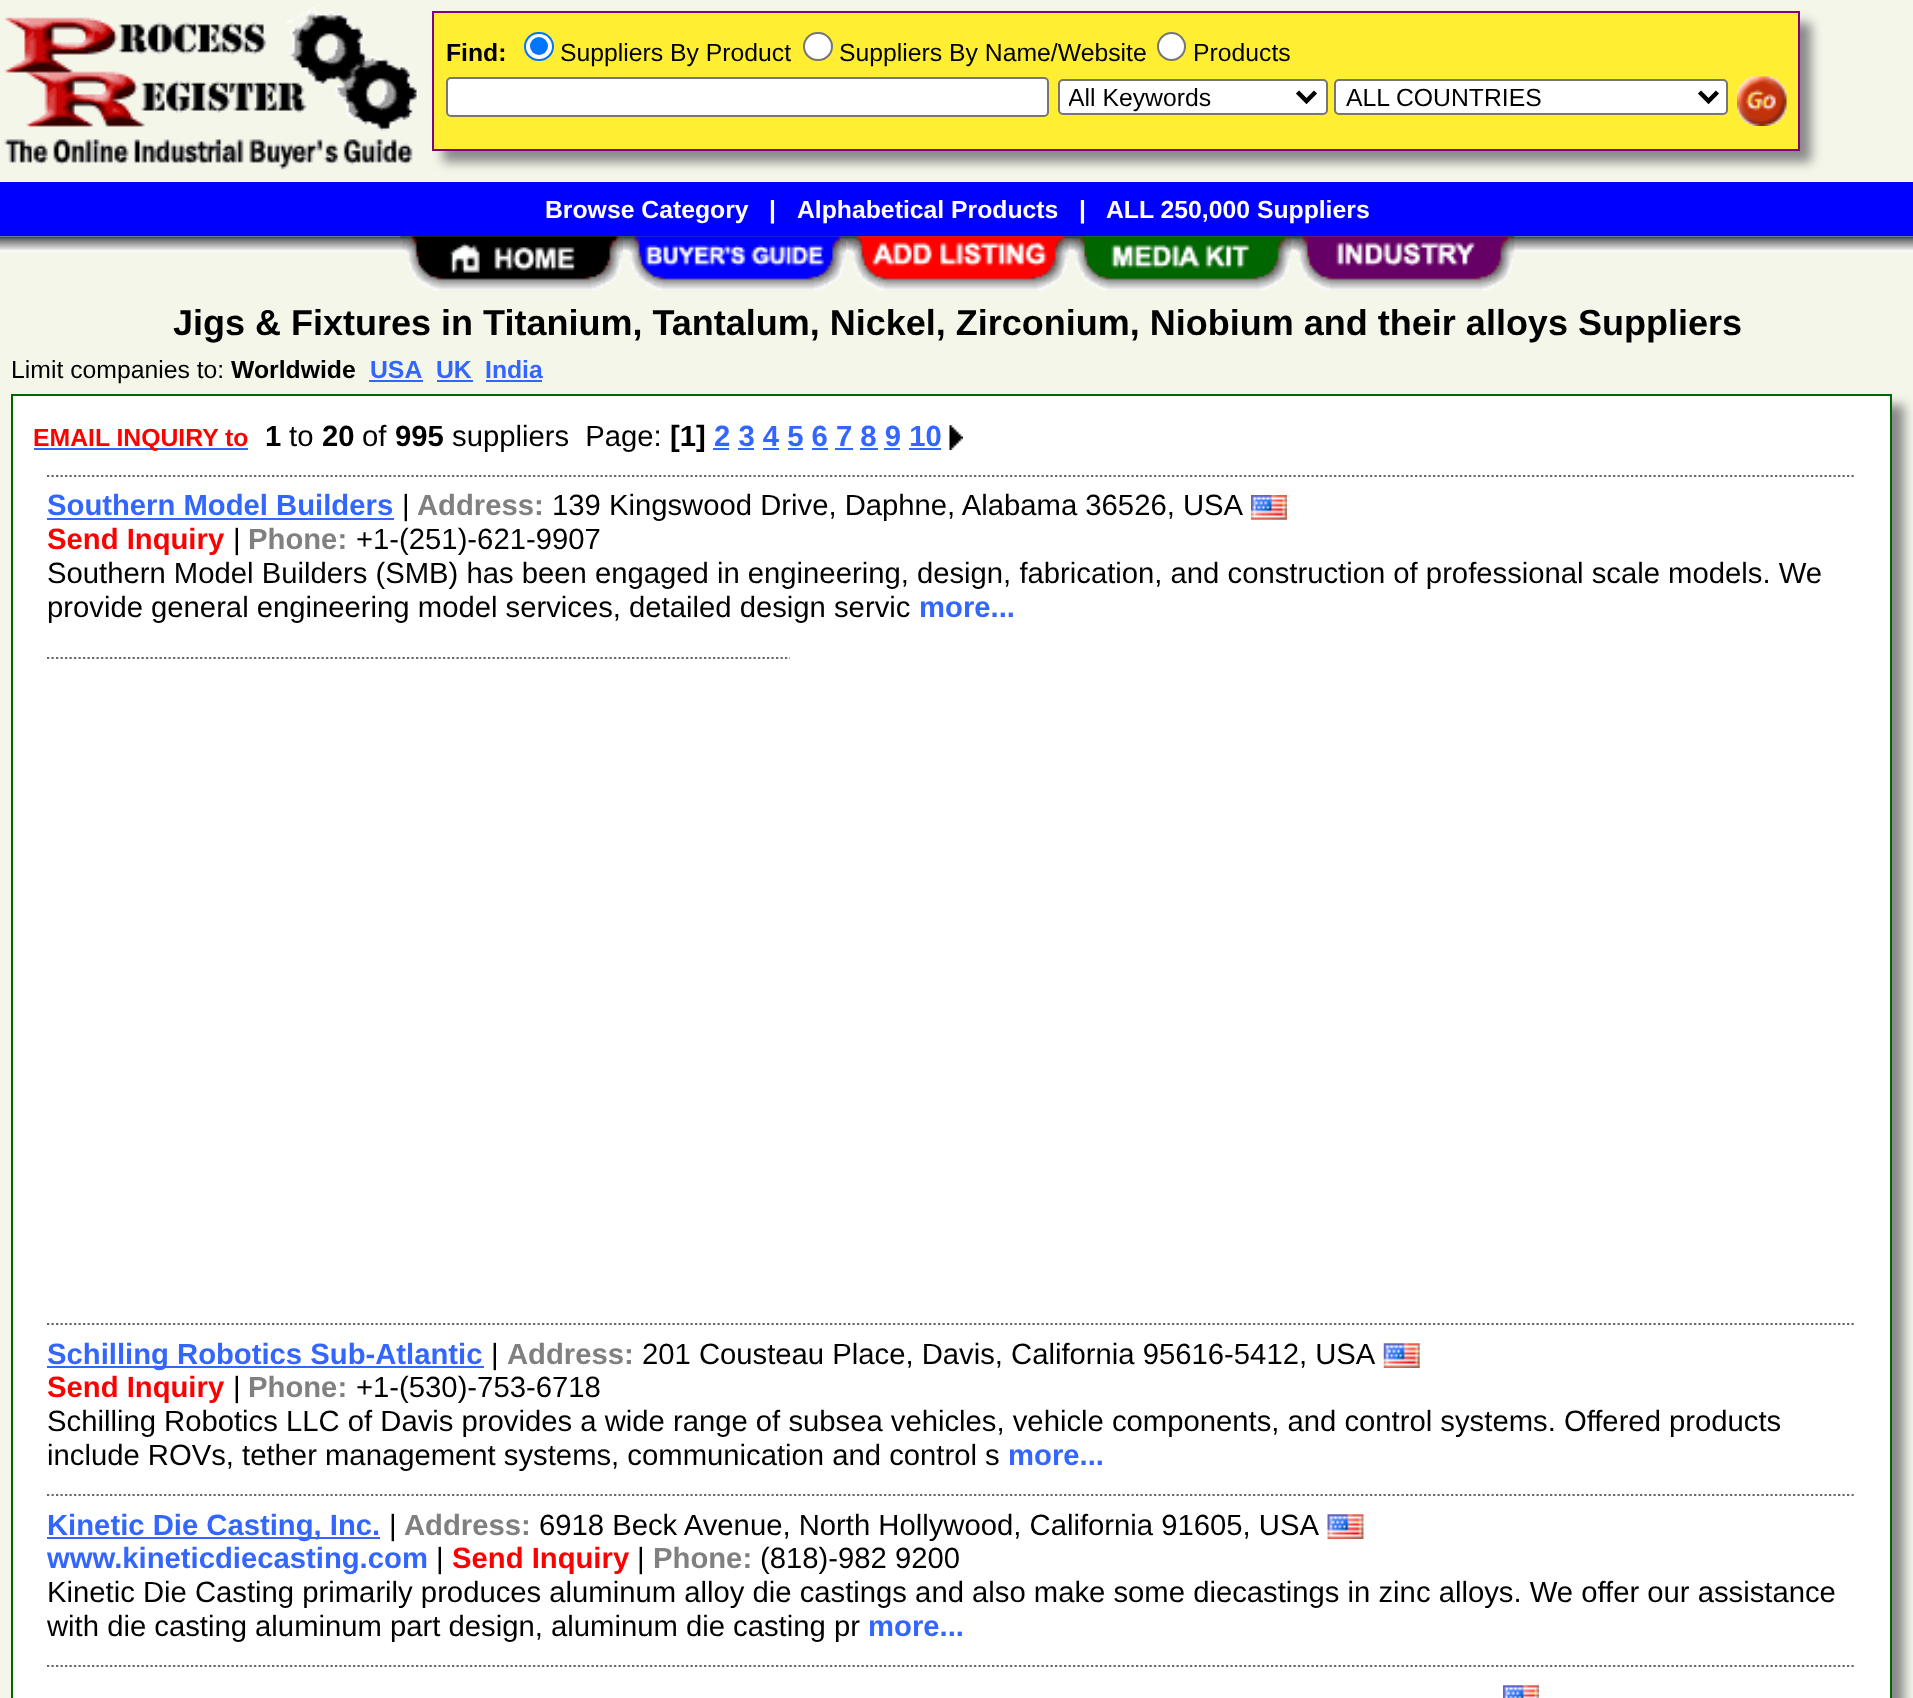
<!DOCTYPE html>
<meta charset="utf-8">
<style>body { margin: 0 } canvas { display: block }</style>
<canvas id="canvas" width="1913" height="1698"></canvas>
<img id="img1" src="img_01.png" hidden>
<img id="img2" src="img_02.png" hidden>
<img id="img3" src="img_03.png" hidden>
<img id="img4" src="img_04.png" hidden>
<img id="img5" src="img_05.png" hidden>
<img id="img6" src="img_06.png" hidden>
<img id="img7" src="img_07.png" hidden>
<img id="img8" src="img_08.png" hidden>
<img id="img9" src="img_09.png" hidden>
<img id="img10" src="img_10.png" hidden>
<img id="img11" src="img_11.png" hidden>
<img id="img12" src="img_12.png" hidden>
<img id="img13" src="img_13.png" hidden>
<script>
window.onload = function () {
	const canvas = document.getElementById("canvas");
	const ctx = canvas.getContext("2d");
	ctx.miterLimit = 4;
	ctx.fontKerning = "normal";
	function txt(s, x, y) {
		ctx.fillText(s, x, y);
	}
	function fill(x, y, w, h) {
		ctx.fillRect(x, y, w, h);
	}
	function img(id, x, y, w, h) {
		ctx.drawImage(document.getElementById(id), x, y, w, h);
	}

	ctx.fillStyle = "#F3F6E9";
	fill(0, 0, 1913, 1698);
	img("img1", 4, 4, 415, 166);
	ctx.fillStyle = "#888888";
	ctx.filter = "blur(5.5px)";
	ctx.beginPath();
	ctx.rect(443, 23, 1368, 139);
	ctx.fill();
	ctx.filter = "none";
	ctx.fillStyle = "#FFEE31";
	ctx.beginPath();
	ctx.rect(433, 12, 1366, 138);
	ctx.fill();
	ctx.strokeStyle = "#800080";
	ctx.lineWidth = 2;
	ctx.stroke();
	ctx.fillStyle = "#FFFFFF";
	ctx.beginPath();
	ctx.roundRect(525, 33, 28, 27, 13.5);
	ctx.fill();
	ctx.strokeStyle = "#0075FF";
	ctx.stroke();
	ctx.fillStyle = "#0075FF";
	ctx.beginPath();
	ctx.arc(539, 46, 9, 0, Math.PI * 2);
	ctx.fill();
	ctx.fillStyle = "#FFFFFF";
	ctx.beginPath();
	ctx.roundRect(804, 33, 28, 27, 13.5);
	ctx.fill();
	ctx.strokeStyle = "#767676";
	ctx.stroke();
	ctx.beginPath();
	ctx.arc(1171.5, 46.5, 13.5, 0, Math.PI * 2);
	ctx.fill();
	ctx.stroke();
	ctx.beginPath();
	ctx.roundRect(447, 78, 601, 38, 4);
	ctx.fill();
	ctx.stroke();
	ctx.beginPath();
	ctx.roundRect(1059, 80, 268, 34, 4);
	ctx.fill();
	ctx.stroke();
	ctx.beginPath();
	ctx.moveTo(1297.5, 92);
	ctx.lineTo(1306.5, 101);
	ctx.lineTo(1315.5, 92);
	ctx.strokeStyle = "#000000";
	ctx.lineWidth = 4.5;
	ctx.stroke();
	ctx.beginPath();
	ctx.roundRect(1335, 80, 392, 34, 4);
	ctx.fill();
	ctx.strokeStyle = "#767676";
	ctx.lineWidth = 2;
	ctx.stroke();
	ctx.beginPath();
	ctx.moveTo(1699.5, 92);
	ctx.lineTo(1708.5, 101);
	ctx.lineTo(1717.5, 92);
	ctx.strokeStyle = "#000000";
	ctx.lineWidth = 4.5;
	ctx.stroke();
	img("img2", 1737, 76, 50, 50);
	ctx.fillStyle = "#0000FF";
	fill(0, 182, 1913, 54);
	img("img3", 0, 236, 1913, 17);
	img("img4", 400, 236, 224, 55);
	img("img5", 623, 236, 223, 55);
	img("img6", 846, 236, 223, 55);
	img("img7", 1068, 236, 224, 55);
	img("img8", 1291, 236, 224, 55);
	ctx.fillStyle = "#3366FF";
	fill(369, 380, 54, 2);
	fill(437, 380, 36, 2);
	fill(486, 380, 56, 2);
	ctx.fillStyle = "#888888";
	ctx.filter = "blur(5.5px)";
	ctx.beginPath();
	ctx.rect(23, 405, 1881, 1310);
	ctx.fill();
	ctx.filter = "none";
	ctx.fillStyle = "#FFFFFF";
	ctx.beginPath();
	ctx.rect(12, 395, 1879, 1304);
	ctx.fill();
	ctx.strokeStyle = "#006600";
	ctx.lineWidth = 2;
	ctx.stroke();
	ctx.fillStyle = "#3366FF";
	fill(34, 448, 214, 2);
	fill(713, 448, 16, 2);
	img("img9", 949, 425, 14, 25);
	fill(738, 448, 16, 2);
	fill(763, 448, 16, 2);
	fill(788, 448, 15, 2);
	fill(812, 448, 16, 2);
	fill(835, 448, 18, 2);
	fill(860, 448, 18, 2);
	fill(884, 448, 16, 2);
	fill(909, 448, 32, 2);
	ctx.beginPath();
	ctx.moveTo(47, 476);
	ctx.lineTo(1856, 476);
	ctx.strokeStyle = "#696969";
	ctx.lineWidth = 2.2;
	ctx.setLineDash([2.25, 2.25]);
	ctx.stroke();
	fill(47, 518, 347, 2);
	img("img10", 1251, 495, 36, 25);
	ctx.beginPath();
	ctx.moveTo(47, 658);
	ctx.lineTo(790, 658);
	ctx.stroke();
	ctx.beginPath();
	ctx.moveTo(47, 1324);
	ctx.lineTo(1856, 1324);
	ctx.stroke();
	fill(47, 1366, 437, 2);
	img("img11", 1383, 1343, 37, 25);
	ctx.beginPath();
	ctx.moveTo(47, 1495);
	ctx.lineTo(1856, 1495);
	ctx.stroke();
	fill(47, 1537, 333, 2);
	img("img12", 1327, 1514, 37, 25);
	ctx.beginPath();
	ctx.moveTo(47, 1666);
	ctx.lineTo(1856, 1666);
	ctx.stroke();
	img("img13", 1503, 1685, 36, 13);
	ctx.font = "bold 24.75px Liberation Sans";
	ctx.fillStyle = "#000000";
	txt("Find:", 446, 61);
	ctx.font = "24.75px Liberation Sans";
	txt("Suppliers By Product", 560, 61);
	txt("Suppliers By Name/Website", 839, 61);
	txt("Products", 1193, 61);
	ctx.save();
	ctx.beginPath();
	ctx.rect(1069, 81, 220, 32);
	ctx.clip();
	txt("All Keywords", 1068, 106);
	ctx.restore();
	txt("ALL COUNTRIES", 1346, 106);
	ctx.font = "bold 24.75px Liberation Sans";
	ctx.fillStyle = "#FFFFFF";
	txt("Browse Category", 545, 218);
	txt("|", 769, 218);
	txt("Alphabetical Products", 797, 218);
	txt("|", 1079, 218);
	txt("ALL 250,000 Suppliers", 1106, 218);
	ctx.font = "bold 36px Liberation Sans";
	ctx.fillStyle = "#000000";
	txt("Jigs & Fixtures in Titanium, Tantalum, Nickel, Zirconium, Niobium and their alloys Suppliers", 173, 335);
	ctx.font = "24.75px Liberation Sans";
	txt("Limit companies to:", 11, 378);
	ctx.font = "bold 24.75px Liberation Sans";
	txt("Worldwide", 231, 378);
	ctx.fillStyle = "#3366FF";
	txt("USA", 370, 378);
	txt("UK", 436, 378);
	txt("India", 485, 378);
	ctx.fillStyle = "#FF0000";
	txt("EMAIL INQUIRY to", 33, 446);
	ctx.font = "bold 29.25px Liberation Sans";
	ctx.fillStyle = "#000000";
	txt("1", 265, 446);
	ctx.font = "29.25px Liberation Sans";
	txt("to", 289, 446);
	ctx.font = "bold 29.25px Liberation Sans";
	txt("20", 322, 446);
	ctx.font = "29.25px Liberation Sans";
	txt("of", 362, 446);
	ctx.font = "bold 29.25px Liberation Sans";
	txt("995", 395, 446);
	ctx.font = "29.25px Liberation Sans";
	txt("suppliers  Page:", 452, 446);
	ctx.font = "bold 29.25px Liberation Sans";
	txt("[1]", 670, 446);
	ctx.fillStyle = "#3366FF";
	txt("2 3 4 5 6 7 8 9 10", 714, 446);
	txt("Southern Model Builders", 47, 515);
	ctx.font = "29.25px Liberation Sans";
	ctx.fillStyle = "#000000";
	txt("|", 402, 515);
	ctx.font = "bold 29.25px Liberation Sans";
	ctx.fillStyle = "#808080";
	txt("Address:", 417, 515);
	ctx.font = "29.25px Liberation Sans";
	ctx.fillStyle = "#000000";
	txt("139 Kingswood Drive, Daphne, Alabama 36526, USA", 552, 515);
	ctx.font = "bold 29.25px Liberation Sans";
	ctx.fillStyle = "#FF0000";
	txt("Send Inquiry", 47, 549);
	ctx.font = "29.25px Liberation Sans";
	ctx.fillStyle = "#000000";
	txt("|", 233, 549);
	ctx.font = "bold 29.25px Liberation Sans";
	ctx.fillStyle = "#808080";
	txt("Phone:", 248, 549);
	ctx.font = "29.25px Liberation Sans";
	ctx.fillStyle = "#000000";
	txt("+1-(251)-621-9907", 356, 549);
	txt("Southern Model Builders (SMB) has been engaged in engineering, design, fabrication, and construction of professional scale models. We", 47, 583);
	txt("provide general engineering model services, detailed design servic", 47, 617);
	ctx.font = "bold 29.25px Liberation Sans";
	ctx.fillStyle = "#3366FF";
	txt("more...", 919, 617);
	txt("Schilling Robotics Sub-Atlantic", 47, 1364);
	ctx.font = "29.25px Liberation Sans";
	ctx.fillStyle = "#000000";
	txt("|", 491, 1364);
	ctx.font = "bold 29.25px Liberation Sans";
	ctx.fillStyle = "#808080";
	txt("Address:", 507, 1364);
	ctx.font = "29.25px Liberation Sans";
	ctx.fillStyle = "#000000";
	txt("201 Cousteau Place, Davis, California 95616-5412, USA", 642, 1364);
	ctx.font = "bold 29.25px Liberation Sans";
	ctx.fillStyle = "#FF0000";
	txt("Send Inquiry", 47, 1397);
	ctx.font = "29.25px Liberation Sans";
	ctx.fillStyle = "#000000";
	txt("|", 233, 1397);
	ctx.font = "bold 29.25px Liberation Sans";
	ctx.fillStyle = "#808080";
	txt("Phone:", 248, 1397);
	ctx.font = "29.25px Liberation Sans";
	ctx.fillStyle = "#000000";
	txt("+1-(530)-753-6718", 356, 1397);
	txt("Schilling Robotics LLC of Davis provides a wide range of subsea vehicles, vehicle components, and control systems. Offered products", 47, 1431);
	txt("include ROVs, tether management systems, communication and control s", 47, 1465);
	ctx.font = "bold 29.25px Liberation Sans";
	ctx.fillStyle = "#3366FF";
	txt("more...", 1008, 1465);
	txt("Kinetic Die Casting, Inc.", 47, 1535);
	ctx.font = "29.25px Liberation Sans";
	ctx.fillStyle = "#000000";
	txt("|", 389, 1535);
	ctx.font = "bold 29.25px Liberation Sans";
	ctx.fillStyle = "#808080";
	txt("Address:", 404, 1535);
	ctx.font = "29.25px Liberation Sans";
	ctx.fillStyle = "#000000";
	txt("6918 Beck Avenue, North Hollywood, California 91605, USA", 539, 1535);
	ctx.font = "bold 29.25px Liberation Sans";
	ctx.fillStyle = "#3366FF";
	txt("www.kineticdiecasting.com", 47, 1568);
	ctx.font = "29.25px Liberation Sans";
	ctx.fillStyle = "#000000";
	txt("|", 436, 1568);
	ctx.font = "bold 29.25px Liberation Sans";
	ctx.fillStyle = "#FF0000";
	txt("Send Inquiry", 452, 1568);
	ctx.font = "29.25px Liberation Sans";
	ctx.fillStyle = "#000000";
	txt("|", 637, 1568);
	ctx.font = "bold 29.25px Liberation Sans";
	ctx.fillStyle = "#808080";
	txt("Phone:", 653, 1568);
	ctx.font = "29.25px Liberation Sans";
	ctx.fillStyle = "#000000";
	txt("(818)-982 9200", 760, 1568);
	txt("Kinetic Die Casting primarily produces aluminum alloy die castings and also make some diecastings in zinc alloys. We offer our assistance", 47, 1602);
	txt("with die casting aluminum part design, aluminum die casting pr", 47, 1636);
	ctx.font = "bold 29.25px Liberation Sans";
	ctx.fillStyle = "#3366FF";
	txt("more...", 868, 1636);
};
</script>
